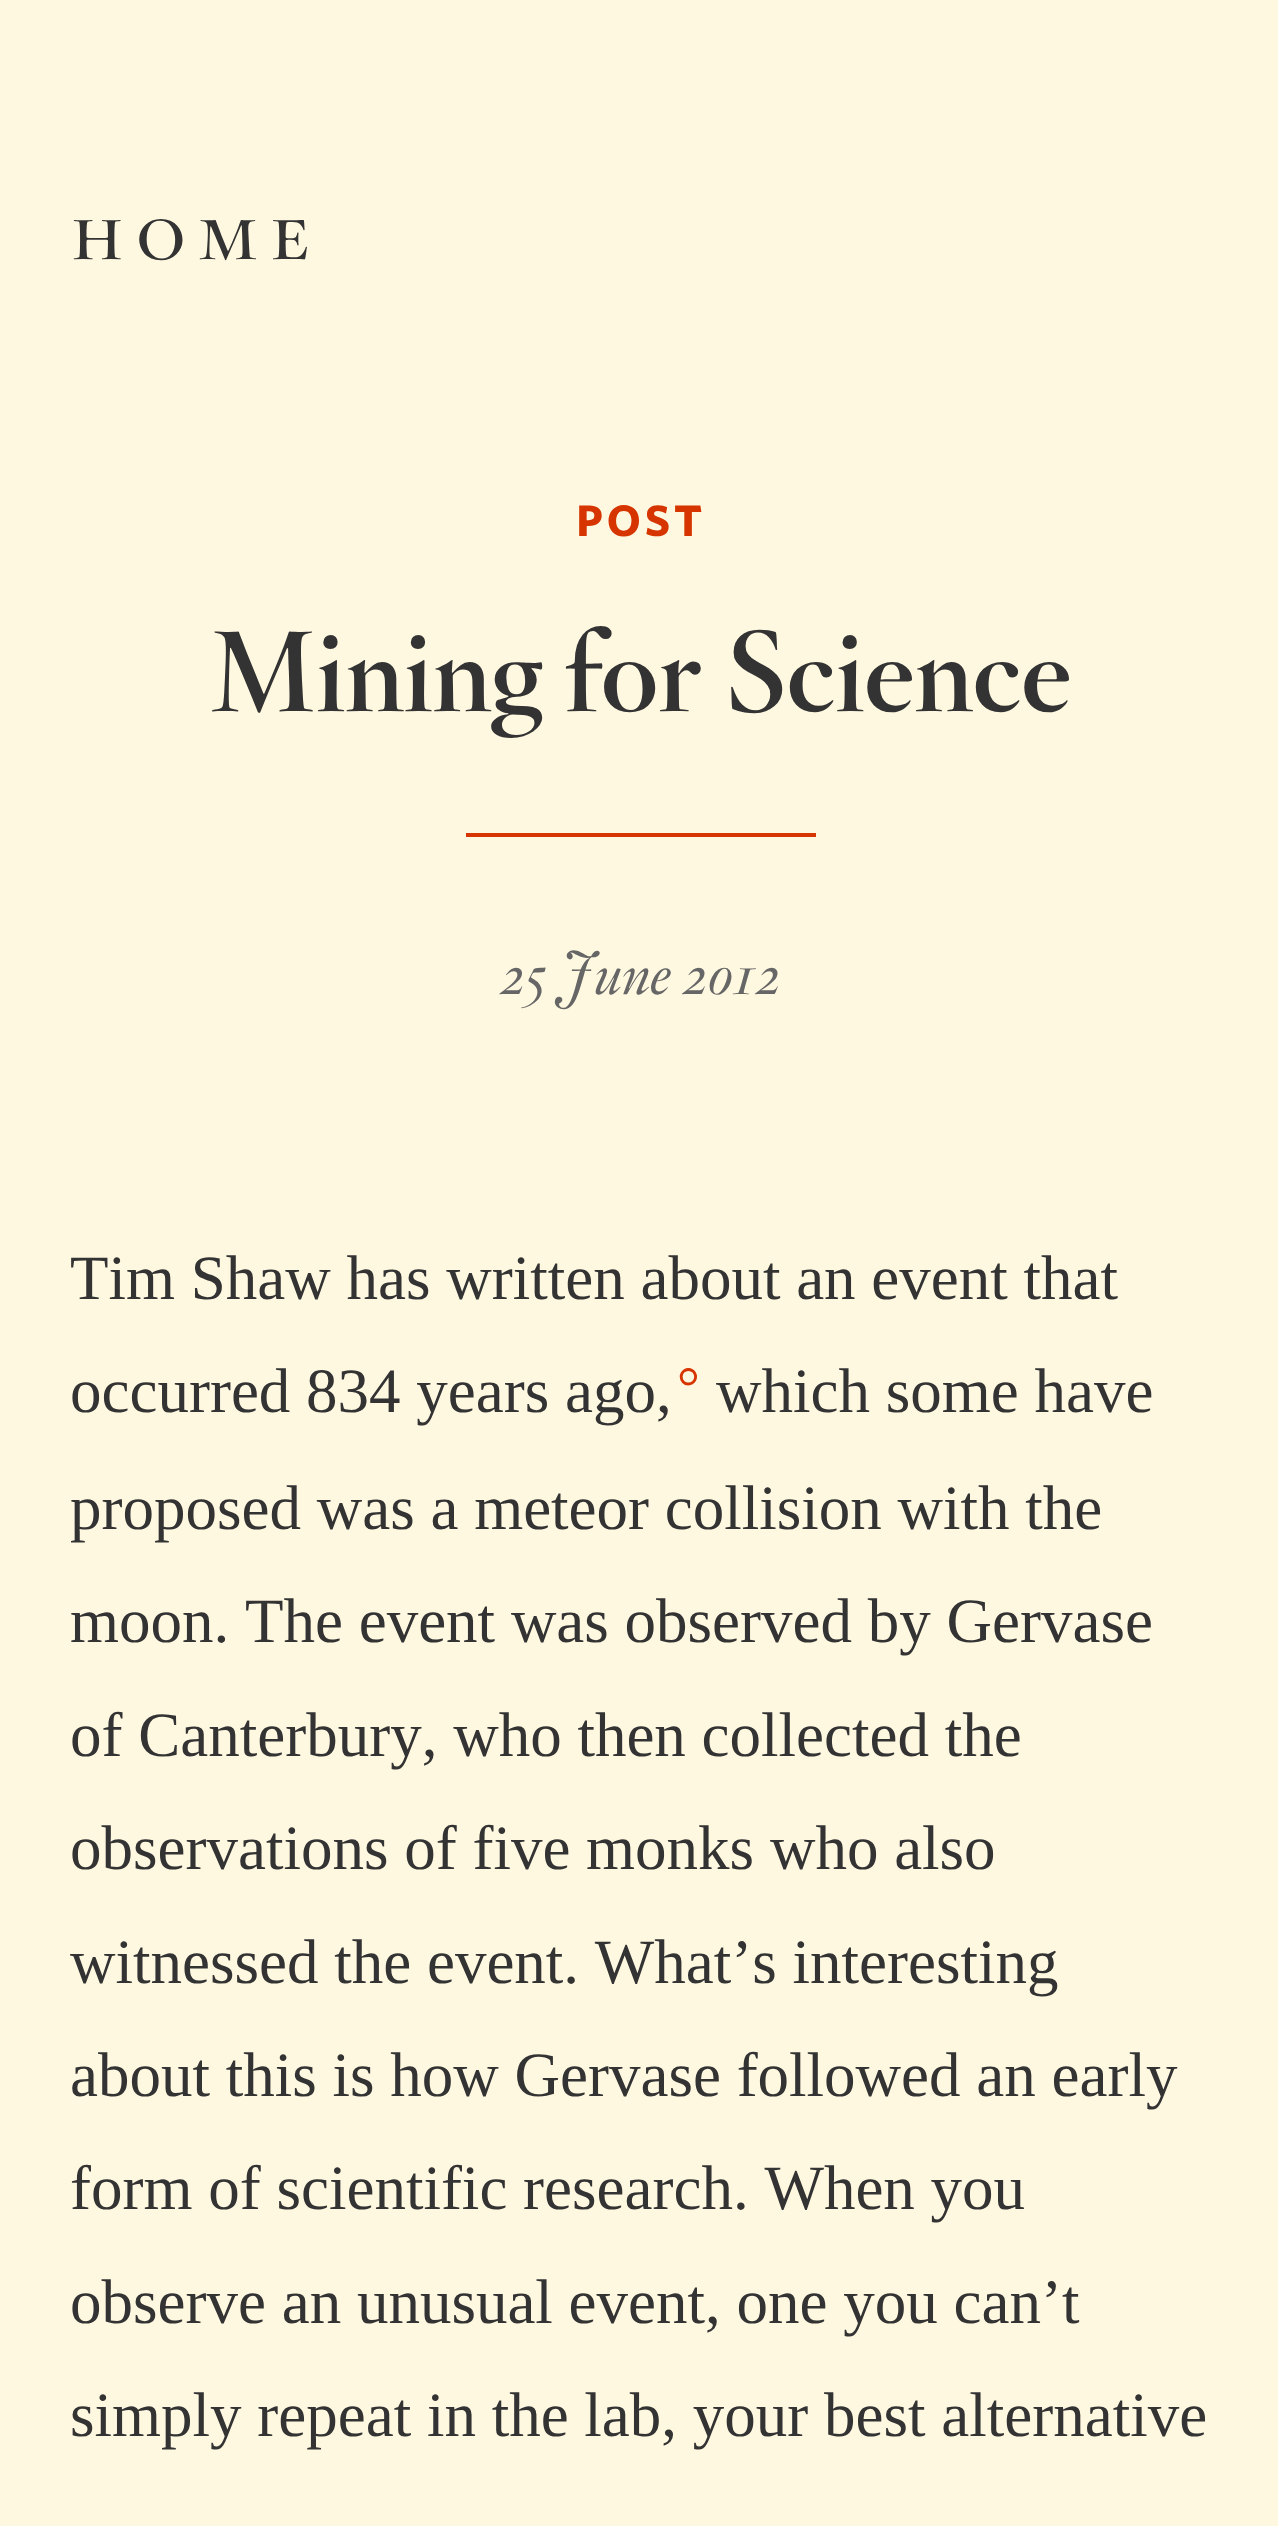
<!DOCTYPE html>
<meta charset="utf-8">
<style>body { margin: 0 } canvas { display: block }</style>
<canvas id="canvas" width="1278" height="2526"></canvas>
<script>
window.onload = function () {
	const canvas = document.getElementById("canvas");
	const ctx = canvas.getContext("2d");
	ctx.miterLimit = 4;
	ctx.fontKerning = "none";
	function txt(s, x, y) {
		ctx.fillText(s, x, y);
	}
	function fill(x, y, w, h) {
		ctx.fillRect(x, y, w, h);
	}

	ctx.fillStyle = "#FFF8E1";
	fill(0, 0, 1278, 2526);
	ctx.fillStyle = "#D63500";
	fill(466, 833, 350, 4);
	ctx.letterSpacing = "10.5px";
	ctx.font = "300 87.5px 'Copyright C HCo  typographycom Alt'";
	ctx.fillStyle = "#333333";
	txt("home", 70, 259);
	ctx.letterSpacing = "3.5px";
	ctx.font = "42px 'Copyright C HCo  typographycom'";
	ctx.fillStyle = "#D63500";
	txt("POST", 576, 536);
	ctx.letterSpacing = "0px";
	ctx.font = "112px 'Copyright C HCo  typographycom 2'";
	ctx.fillStyle = "#333333";
	txt("Mining for Science", 210, 711);
	ctx.font = "italic 300 59.5px 'Copyright C HCo  typographycom'";
	ctx.fillStyle = "#666666";
	txt("25 June 2012", 500, 994);
	ctx.font = "63px Liberation Serif";
	ctx.fillStyle = "#333333";
	txt("Tim Shaw has written about an event that", 70, 1299);
	txt("occurred 834 years ago,", 70, 1412);
	ctx.font = "57px Liberation Serif";
	ctx.fillStyle = "#D63500";
	txt("°", 677, 1406);
	ctx.font = "63px Liberation Serif";
	ctx.fillStyle = "#333333";
	txt("which some have", 716, 1412);
	txt("proposed was a meteor collision with the", 70, 1529);
	txt("moon. The event was observed by Gervase", 70, 1642);
	txt("of Canterbury, who then collected the", 70, 1756);
	txt("observations of five monks who also", 70, 1869);
	txt("witnessed the event. What’s interesting", 70, 1983);
	txt("about this is how Gervase followed an early", 70, 2096);
	txt("form of scientific research. When you", 70, 2209);
	txt("observe an unusual event, one you can’t", 70, 2323);
	txt("simply repeat in the lab, your best alternative", 70, 2436);
};
</script>
